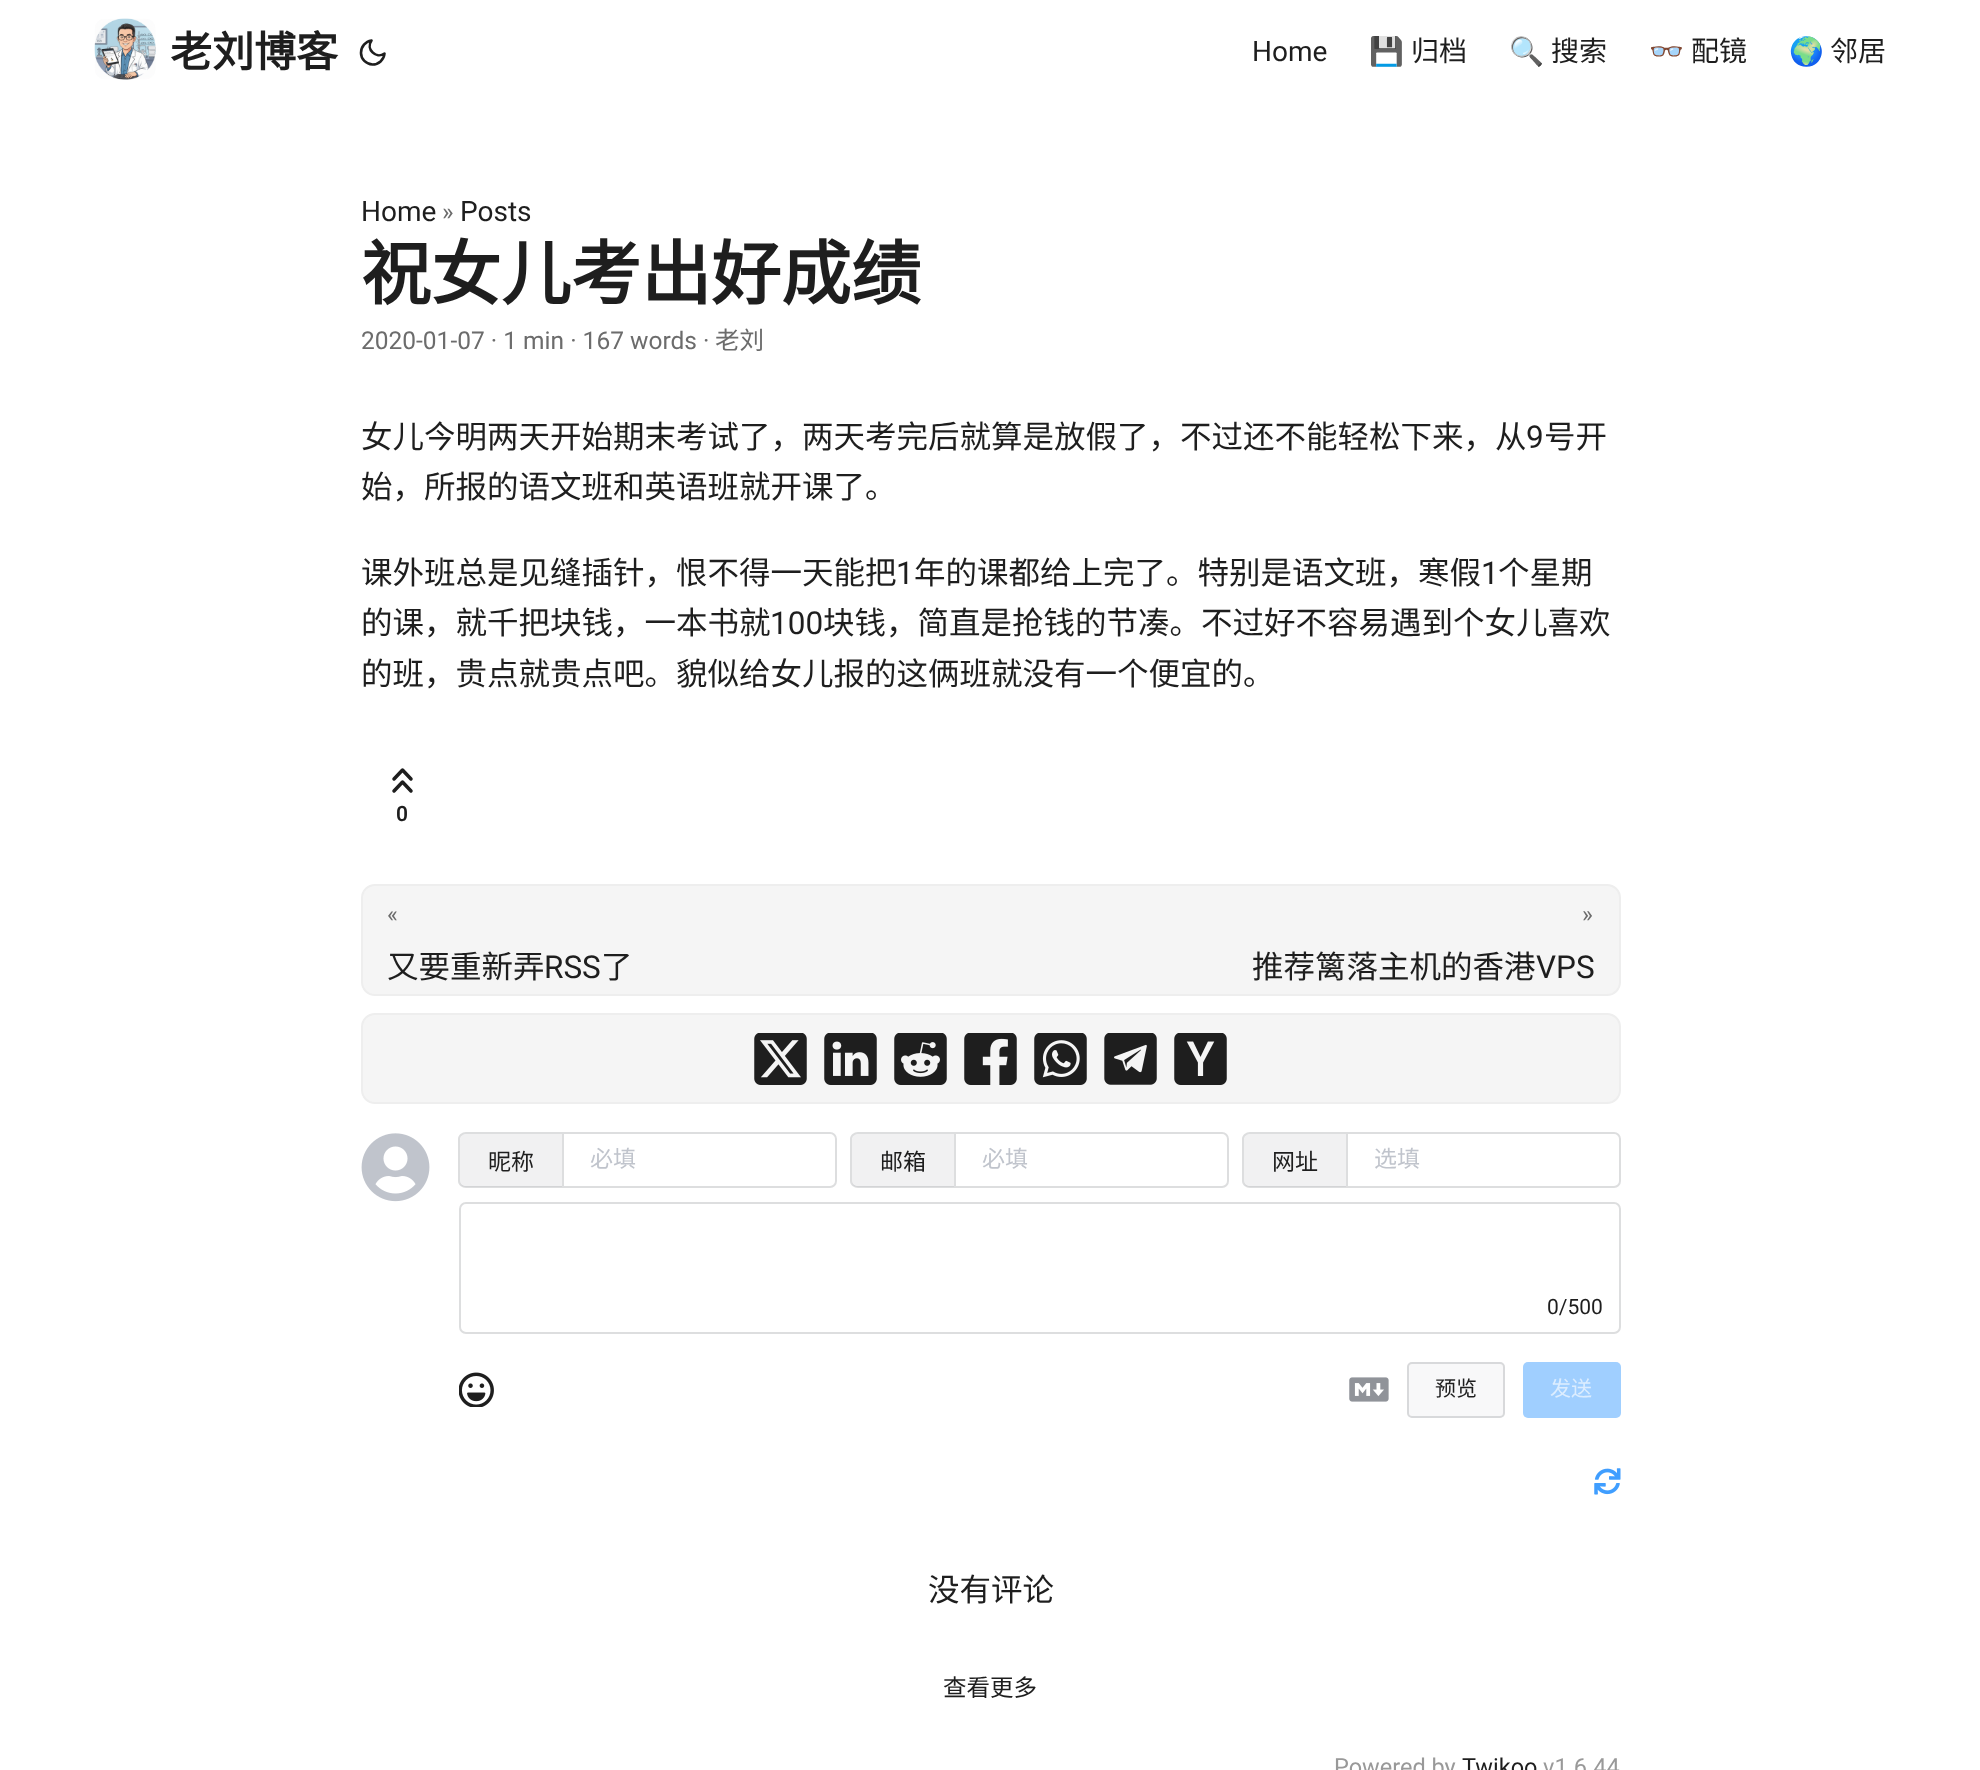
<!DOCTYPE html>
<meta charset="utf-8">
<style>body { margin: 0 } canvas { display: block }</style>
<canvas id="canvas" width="1980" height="1770"></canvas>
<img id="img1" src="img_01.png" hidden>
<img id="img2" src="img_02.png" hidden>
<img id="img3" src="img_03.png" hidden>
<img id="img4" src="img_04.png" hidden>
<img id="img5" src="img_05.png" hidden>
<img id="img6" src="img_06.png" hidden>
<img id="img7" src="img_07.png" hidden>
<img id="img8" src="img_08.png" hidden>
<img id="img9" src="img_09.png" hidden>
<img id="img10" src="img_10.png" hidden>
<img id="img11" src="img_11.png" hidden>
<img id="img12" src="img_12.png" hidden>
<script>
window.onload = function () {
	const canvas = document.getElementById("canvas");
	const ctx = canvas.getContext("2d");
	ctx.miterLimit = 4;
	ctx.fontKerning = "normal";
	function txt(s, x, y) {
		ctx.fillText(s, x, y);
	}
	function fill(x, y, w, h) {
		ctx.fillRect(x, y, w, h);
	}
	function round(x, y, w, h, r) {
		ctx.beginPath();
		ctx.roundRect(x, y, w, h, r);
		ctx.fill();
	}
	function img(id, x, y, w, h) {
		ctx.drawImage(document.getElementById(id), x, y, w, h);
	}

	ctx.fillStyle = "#FFFFFF";
	fill(0, 0, 1980, 1770);
	img("img1", 94, 18, 62, 62);
	ctx.beginPath();
	ctx.moveTo(384.5, 53.5);
	ctx.bezierCurveTo(384, 60, 378.5, 64.5, 372.5, 64.5);
	ctx.bezierCurveTo(366, 64, 361, 59, 361, 53);
	ctx.bezierCurveTo(361, 46.5, 365.5, 41.5, 371.5, 40.5);
	ctx.bezierCurveTo(365.5, 49, 376, 59.5, 384.5, 53.5);
	ctx.closePath();
	ctx.strokeStyle = "#1E1E1E";
	ctx.lineWidth = 2.6;
	ctx.lineCap = "round";
	ctx.lineJoin = "round";
	ctx.stroke();
	ctx.beginPath();
	ctx.moveTo(411, 779);
	ctx.lineTo(402.5, 770);
	ctx.lineTo(394, 779);
	ctx.moveTo(411, 791);
	ctx.lineTo(402.5, 782);
	ctx.lineTo(394, 791);
	ctx.lineWidth = 3.5;
	ctx.stroke();
	ctx.fillStyle = "#F5F5F5";
	ctx.beginPath();
	ctx.roundRect(362, 885, 1258, 110, 13);
	ctx.fill();
	ctx.strokeStyle = "#EEEEEE";
	ctx.lineWidth = 2;
	ctx.lineJoin = "miter";
	ctx.stroke();
	ctx.beginPath();
	ctx.roundRect(362, 1014, 1258, 89, 13);
	ctx.fill();
	ctx.stroke();
	img("img2", 754, 1033, 53, 52);
	img("img3", 824, 1033, 53, 52);
	img("img4", 894, 1033, 53, 52);
	img("img5", 964, 1033, 53, 52);
	img("img6", 1034, 1033, 53, 52);
	img("img7", 1104, 1033, 53, 52);
	img("img8", 1174, 1033, 53, 52);
	img("img9", 361, 1133, 69, 69);
	ctx.fillStyle = "#F1F1F2";
	ctx.beginPath();
	ctx.roundRect(460, 1134, 102, 53, [5, 0, 0, 5]);
	ctx.fill();
	ctx.fillStyle = "rgba(144, 147, 153, 0.31)";
	ctx.beginPath();
	ctx.moveTo(466, 1132);
	ctx.lineTo(562, 1132);
	ctx.lineTo(562, 1188);
	ctx.lineTo(466, 1188);
	ctx.bezierCurveTo(462, 1188, 458, 1185, 458, 1181);
	ctx.lineTo(458, 1139);
	ctx.bezierCurveTo(458, 1135, 462, 1132, 466, 1132);
	ctx.closePath();
	ctx.moveTo(466, 1134);
	ctx.lineTo(562, 1134);
	ctx.lineTo(562, 1186);
	ctx.lineTo(466, 1186);
	ctx.bezierCurveTo(463, 1186, 460, 1184, 460, 1181);
	ctx.lineTo(460, 1139);
	ctx.bezierCurveTo(460, 1136, 463, 1134, 466, 1134);
	ctx.closePath();
	ctx.fill("evenodd");
	ctx.beginPath();
	ctx.roundRect(563, 1133, 273, 54, [0, 6, 6, 0]);
	ctx.strokeStyle = "#DDDEDF";
	ctx.stroke();
	ctx.fillStyle = "#F1F1F2";
	ctx.beginPath();
	ctx.roundRect(852, 1134, 102, 53, [5, 0, 0, 5]);
	ctx.fill();
	ctx.fillStyle = "rgba(144, 147, 153, 0.31)";
	ctx.beginPath();
	ctx.moveTo(858, 1132);
	ctx.lineTo(954, 1132);
	ctx.lineTo(954, 1188);
	ctx.lineTo(858, 1188);
	ctx.bezierCurveTo(854, 1188, 850, 1185, 850, 1181);
	ctx.lineTo(850, 1139);
	ctx.bezierCurveTo(850, 1135, 854, 1132, 858, 1132);
	ctx.closePath();
	ctx.moveTo(858, 1134);
	ctx.lineTo(954, 1134);
	ctx.lineTo(954, 1186);
	ctx.lineTo(858, 1186);
	ctx.bezierCurveTo(855, 1186, 852, 1184, 852, 1181);
	ctx.lineTo(852, 1139);
	ctx.bezierCurveTo(852, 1136, 855, 1134, 858, 1134);
	ctx.closePath();
	ctx.fill("evenodd");
	ctx.beginPath();
	ctx.roundRect(955, 1133, 273, 54, [0, 6, 6, 0]);
	ctx.stroke();
	ctx.fillStyle = "#F1F1F2";
	ctx.beginPath();
	ctx.roundRect(1244, 1134, 102, 53, [5, 0, 0, 5]);
	ctx.fill();
	ctx.fillStyle = "rgba(144, 147, 153, 0.31)";
	ctx.beginPath();
	ctx.moveTo(1250, 1132);
	ctx.lineTo(1346, 1132);
	ctx.lineTo(1346, 1188);
	ctx.lineTo(1250, 1188);
	ctx.bezierCurveTo(1246, 1188, 1242, 1185, 1242, 1181);
	ctx.lineTo(1242, 1139);
	ctx.bezierCurveTo(1242, 1135, 1246, 1132, 1250, 1132);
	ctx.closePath();
	ctx.moveTo(1250, 1134);
	ctx.lineTo(1346, 1134);
	ctx.lineTo(1346, 1186);
	ctx.lineTo(1250, 1186);
	ctx.bezierCurveTo(1247, 1186, 1244, 1184, 1244, 1181);
	ctx.lineTo(1244, 1139);
	ctx.bezierCurveTo(1244, 1136, 1247, 1134, 1250, 1134);
	ctx.closePath();
	ctx.fill("evenodd");
	ctx.beginPath();
	ctx.roundRect(1347, 1133, 273, 54, [0, 6, 6, 0]);
	ctx.stroke();
	ctx.beginPath();
	ctx.roundRect(460, 1203, 1160, 130, 6);
	ctx.stroke();
	img("img10", 459, 1372, 35, 35);
	img("img11", 1349, 1377, 40, 25);
	ctx.fillStyle = "#F8F8F9";
	round(1407, 1362, 98, 56, 5);
	ctx.beginPath();
	ctx.roundRect(1408, 1363, 96, 54, 4);
	ctx.strokeStyle = "rgba(144, 147, 153, 0.31)";
	ctx.stroke();
	ctx.fillStyle = "#A0CFFF";
	round(1523, 1362, 98, 56, 5);
	img("img12", 1594, 1468, 27, 27);
	ctx.font = "bold 42px Noto Sans CJK SC";
	ctx.fillStyle = "#1E1E1E";
	txt("老刘博客", 170, 67);
	ctx.font = "28px Roboto";
	txt("Home", 1252, 61);
	ctx.font = "28px Noto Color Emoji";
	txt("💾", 1369, 61);
	ctx.font = "28px Noto Sans CJK SC";
	txt("归档", 1411, 61);
	ctx.font = "28px Noto Color Emoji";
	txt("🔍", 1509, 61);
	ctx.font = "28px Noto Sans CJK SC";
	txt("搜索", 1551, 61);
	ctx.font = "28px Noto Color Emoji";
	txt("👓", 1649, 61);
	ctx.font = "28px Noto Sans CJK SC";
	txt("配镜", 1691, 61);
	ctx.font = "28px Noto Color Emoji";
	txt("🌍", 1789, 61);
	ctx.font = "28px Noto Sans CJK SC";
	txt("邻居", 1830, 61);
	ctx.font = "28px Roboto";
	txt("Home", 361, 221);
	ctx.font = "24.5px Roboto";
	ctx.fillStyle = "#6C6C6C";
	txt("»", 442, 220);
	ctx.font = "28px Roboto";
	ctx.fillStyle = "#1E1E1E";
	txt("Posts", 460, 221);
	ctx.font = "bold 70px Noto Sans CJK SC";
	txt("祝女儿考出好成绩", 361, 299);
	ctx.font = "24.5px Roboto";
	ctx.fillStyle = "#6C6C6C";
	txt("2020-01-07 · 1 min · 167 words ·", 361, 349);
	ctx.font = "24.5px Noto Sans CJK SC";
	txt("老刘", 715, 349);
	ctx.font = "31.5px Noto Sans CJK SC";
	ctx.fillStyle = "#1E1E1E";
	txt("女儿今明两天开始期末考试了，两天考完后就算是放假了，不过还不能轻松下来，从", 361, 448);
	ctx.font = "31.5px Roboto";
	txt("9", 1526, 448);
	ctx.font = "31.5px Noto Sans CJK SC";
	txt("号开", 1544, 448);
	txt("始，所报的语文班和英语班就开课了。", 361, 498);
	txt("课外班总是见缝插针，恨不得一天能把", 361, 584);
	ctx.font = "31.5px Roboto";
	txt("1", 896, 584);
	ctx.font = "31.5px Noto Sans CJK SC";
	txt("年的课都给上完了。特别是语文班，寒假", 914, 584);
	ctx.font = "31.5px Roboto";
	txt("1", 1481, 584);
	ctx.font = "31.5px Noto Sans CJK SC";
	txt("个星期", 1498, 584);
	txt("的课，就千把块钱，一本书就", 361, 634);
	ctx.font = "31.5px Roboto";
	txt("100", 770, 634);
	ctx.font = "31.5px Noto Sans CJK SC";
	txt("块钱，简直是抢钱的节凑。不过好不容易遇到个女儿喜欢", 823, 634);
	txt("的班，贵点就贵点吧。貌似给女儿报的这俩班就没有一个便宜的。", 361, 685);
	ctx.font = "600 21px Roboto";
	txt("0", 396, 821);
	ctx.letterSpacing = "2px";
	ctx.font = "23px Roboto";
	ctx.fillStyle = "#6C6C6C";
	txt("«", 387, 922);
	ctx.letterSpacing = "0px";
	ctx.font = "31.5px Noto Sans CJK SC";
	ctx.fillStyle = "#1E1E1E";
	txt("又要重新弄", 387, 978);
	ctx.font = "31.5px Roboto";
	txt("RSS", 544, 978);
	ctx.font = "31.5px Noto Sans CJK SC";
	txt("了", 601, 978);
	ctx.letterSpacing = "2px";
	ctx.font = "23px Roboto";
	ctx.fillStyle = "#6C6C6C";
	txt("»", 1582, 922);
	ctx.letterSpacing = "0px";
	ctx.font = "31.5px Noto Sans CJK SC";
	ctx.fillStyle = "#1E1E1E";
	txt("推荐篱落主机的香港", 1252, 978);
	ctx.font = "31.5px Roboto";
	txt("VPS", 1536, 978);
	ctx.font = "23px Noto Sans CJK SC";
	txt("昵称", 488, 1170);
	ctx.fillStyle = "#C0C4CC";
	txt("必填", 590, 1167);
	ctx.fillStyle = "#1E1E1E";
	txt("邮箱", 880, 1170);
	ctx.fillStyle = "#C0C4CC";
	txt("必填", 982, 1167);
	ctx.fillStyle = "#1E1E1E";
	txt("网址", 1272, 1170);
	ctx.fillStyle = "#C0C4CC";
	txt("选填", 1374, 1167);
	ctx.font = "21px Roboto";
	ctx.fillStyle = "#1E1E1E";
	txt("0/500", 1547, 1314);
	ctx.font = "21px Noto Sans CJK SC";
	txt("预览", 1435, 1396);
	ctx.fillStyle = "#DCEDFF";
	txt("发送", 1550, 1396);
	ctx.font = "31.5px Noto Sans CJK SC";
	ctx.fillStyle = "#1E1E1E";
	txt("没有评论", 928, 1601);
	ctx.font = "23.5px Noto Sans CJK SC";
	txt("查看更多", 943, 1696);
	ctx.font = "23.5px Roboto";
	ctx.fillStyle = "#999999";
	txt("Powered by", 1334, 1775);
	ctx.fillStyle = "#1E1E1E";
	txt("Twikoo", 1462, 1775);
	ctx.fillStyle = "#999999";
	txt("v1.6.44", 1543, 1775);
};
</script>
